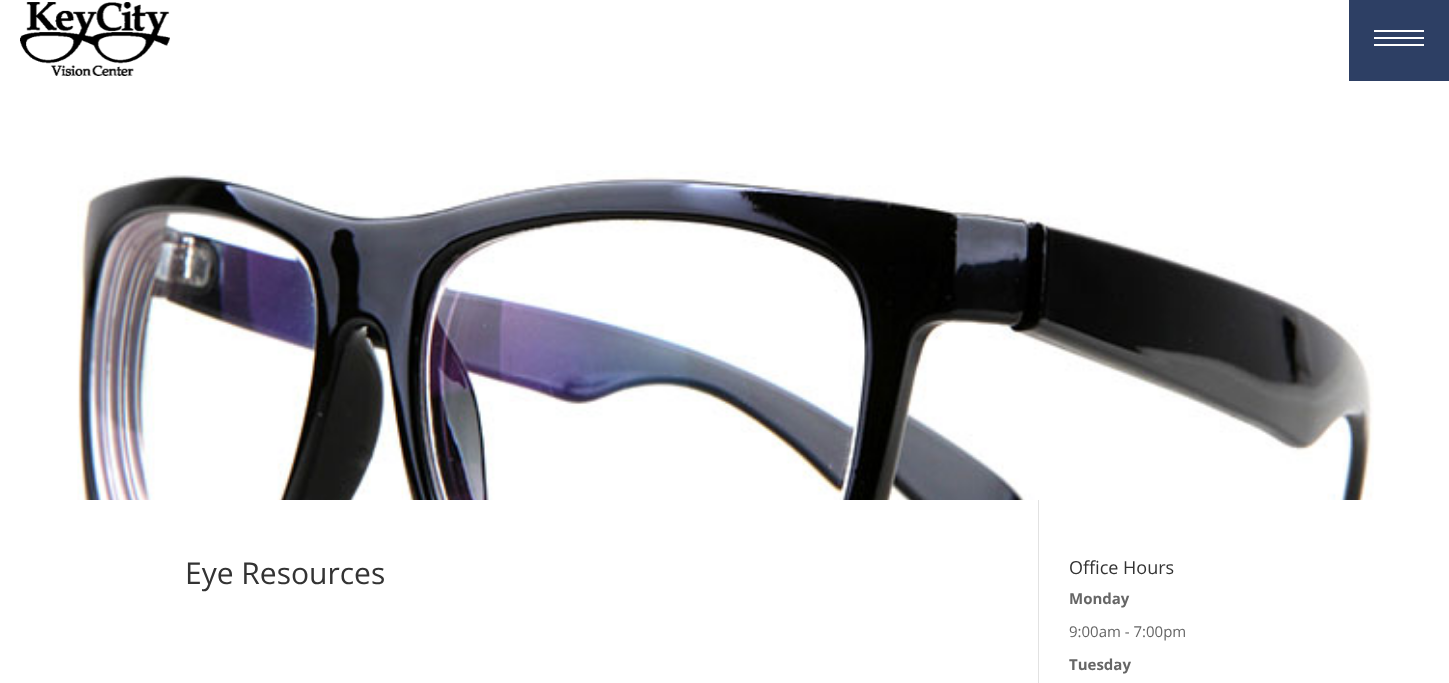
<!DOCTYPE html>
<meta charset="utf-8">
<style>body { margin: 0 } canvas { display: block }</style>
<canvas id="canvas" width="1449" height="683"></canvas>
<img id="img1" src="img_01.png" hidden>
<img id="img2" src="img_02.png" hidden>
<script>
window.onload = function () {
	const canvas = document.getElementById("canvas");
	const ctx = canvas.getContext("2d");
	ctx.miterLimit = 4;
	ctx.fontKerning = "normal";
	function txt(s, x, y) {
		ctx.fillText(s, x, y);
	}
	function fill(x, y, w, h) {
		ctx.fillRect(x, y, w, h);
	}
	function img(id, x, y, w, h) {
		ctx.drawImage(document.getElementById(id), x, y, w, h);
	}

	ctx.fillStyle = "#FFFFFF";
	fill(0, 0, 1449, 683);
	img("img1", 20, 2, 150, 74);
	ctx.fillStyle = "#2D3F64";
	fill(1349, 0, 100, 81);
	ctx.fillStyle = "#FFFFFF";
	fill(1374, 30, 50, 2);
	fill(1374, 37, 50, 2);
	fill(1374, 44, 50, 2);
	img("img2", 77, 170, 1297, 330);
	ctx.fillStyle = "#E2E2E2";
	fill(1038, 500, 1, 183);
	ctx.font = "30px Open Sans";
	ctx.fillStyle = "#333333";
	txt("Eye Resources", 185, 584);
	ctx.font = "18px Open Sans";
	txt("Office Hours", 1069, 574);
	ctx.font = "bold 15px Open Sans";
	ctx.fillStyle = "#666666";
	txt("Monday", 1069, 604);
	ctx.font = "15px Open Sans";
	txt("9:00am - 7:00pm", 1069, 637);
	ctx.font = "bold 15px Open Sans";
	txt("Tuesday", 1069, 670);
};
</script>
